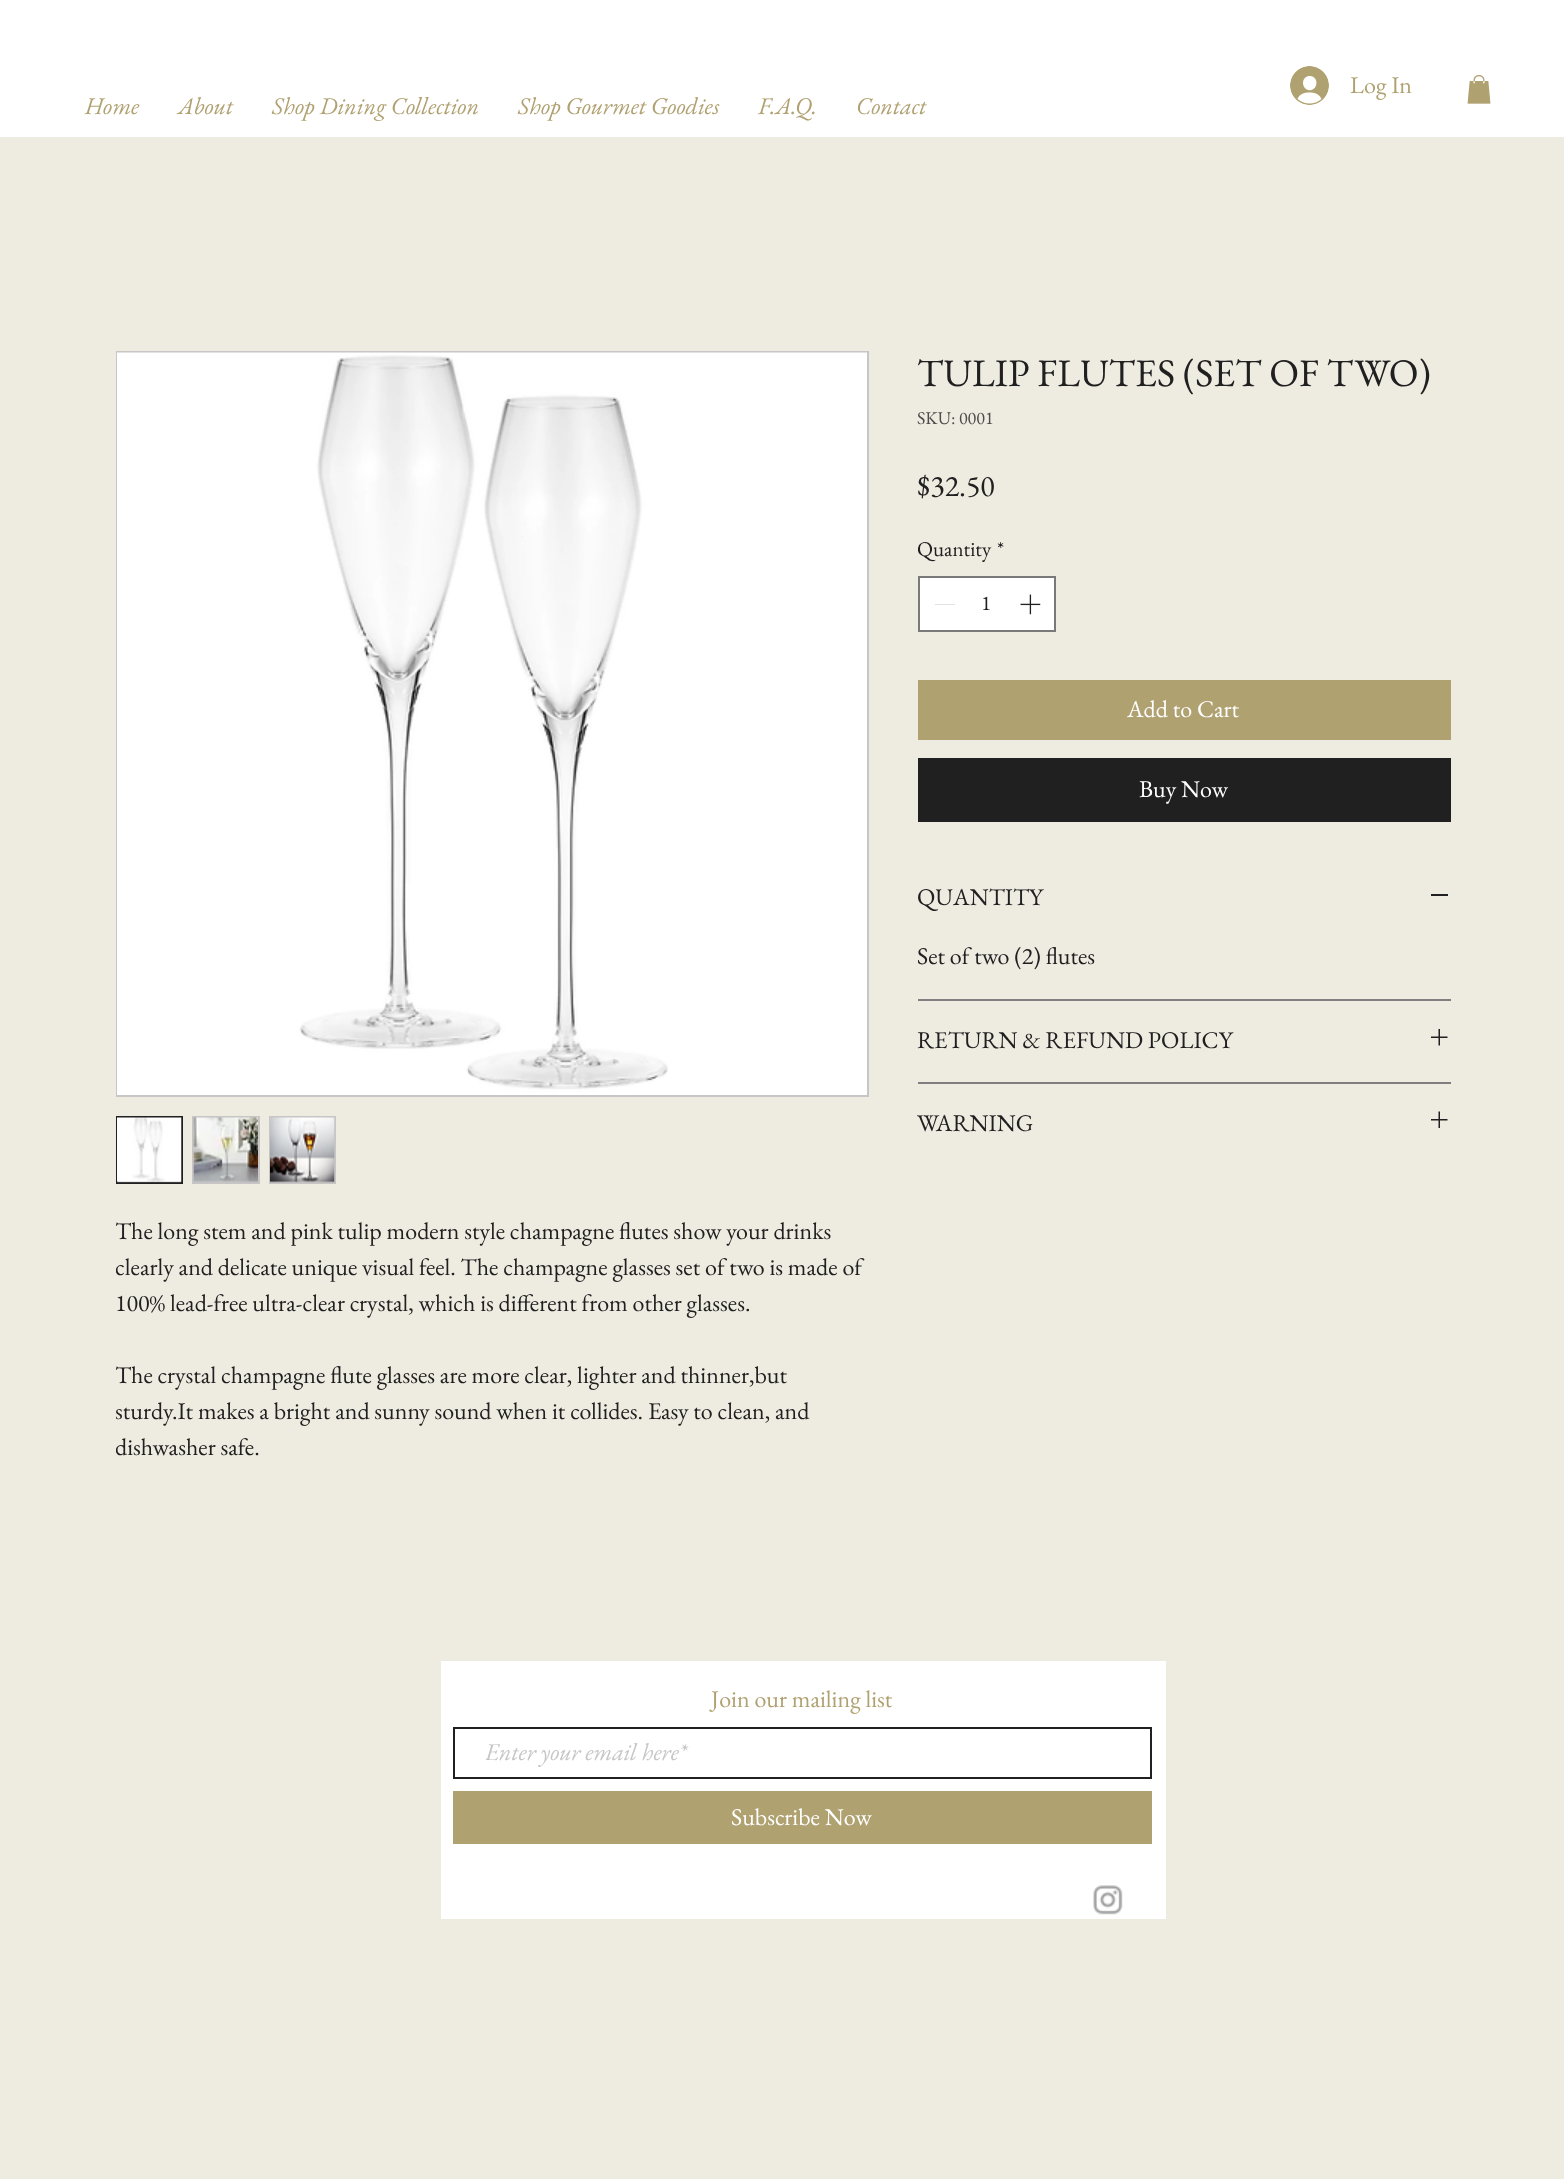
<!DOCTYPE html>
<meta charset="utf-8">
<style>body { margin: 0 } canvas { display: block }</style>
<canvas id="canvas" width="1564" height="2179"></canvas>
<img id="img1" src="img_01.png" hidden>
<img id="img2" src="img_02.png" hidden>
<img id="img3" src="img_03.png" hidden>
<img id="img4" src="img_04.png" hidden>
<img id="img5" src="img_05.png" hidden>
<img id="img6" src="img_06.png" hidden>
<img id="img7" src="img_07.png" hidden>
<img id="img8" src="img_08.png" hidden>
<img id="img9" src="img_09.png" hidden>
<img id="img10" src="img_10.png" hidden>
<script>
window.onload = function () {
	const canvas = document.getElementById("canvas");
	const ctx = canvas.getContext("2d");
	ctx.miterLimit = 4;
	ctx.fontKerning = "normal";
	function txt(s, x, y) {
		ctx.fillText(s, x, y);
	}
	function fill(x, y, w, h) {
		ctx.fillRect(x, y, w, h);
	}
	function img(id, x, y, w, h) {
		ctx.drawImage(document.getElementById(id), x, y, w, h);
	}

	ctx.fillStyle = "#EEEBE1";
	fill(0, 0, 1564, 2179);
	ctx.fillStyle = "#FFFFFF";
	fill(0, 0, 1564, 137);
	img("img1", 1290, 66, 39, 39);
	img("img2", 1467, 75, 24, 29);
	ctx.beginPath();
	ctx.rect(919, 577, 136, 54);
	ctx.fill();
	ctx.strokeStyle = "#7A7979";
	ctx.lineWidth = 2;
	ctx.stroke();
	ctx.fillStyle = "#E3E3E3";
	fill(935, 604, 20, 1);
	img("img3", 1020, 594, 21, 21);
	ctx.fillStyle = "#B0A171";
	fill(918, 680, 533, 60);
	ctx.fillStyle = "#212020";
	fill(918, 758, 533, 64);
	ctx.fillStyle = "#807E7E";
	fill(918, 999, 533, 2);
	ctx.fillStyle = "#212020";
	fill(1431, 894, 17, 2);
	ctx.fillStyle = "#807E7E";
	fill(918, 1082, 533, 2);
	img("img4", 1431, 1029, 17, 17);
	img("img5", 1431, 1111, 17, 17);
	ctx.strokeStyle = "#C7C5C5";
	ctx.strokeRect(117, 352, 751, 744);
	img("img6", 117, 352, 750, 743);
	ctx.fillStyle = "#C7C5C5";
	fill(118, 1181, 63, 1);
	ctx.strokeStyle = "#212020";
	ctx.strokeRect(117, 1117, 65, 66);
	img("img7", 117, 1117, 65, 66);
	fill(192, 1116, 68, 68);
	img("img8", 193, 1117, 65, 66);
	fill(269, 1116, 67, 68);
	img("img9", 270, 1117, 65, 66);
	ctx.fillStyle = "#FFFFFF";
	fill(441, 1661, 725, 258);
	ctx.strokeRect(454, 1728, 697, 50);
	ctx.fillStyle = "#B0A171";
	fill(453, 1791, 699, 53);
	img("img10", 1093, 1885, 30, 30);
	ctx.font = "24px EB Garamond";
	txt("Log In", 1350, 93);
	ctx.font = "italic 24px EB Garamond";
	txt("Home", 85, 114);
	txt("About", 178, 114);
	txt("Shop Dining Collection", 272, 114);
	txt("Shop Gourmet Goodies", 518, 114);
	txt("F.A.Q.", 758, 114);
	txt("Contact", 856, 114);
	ctx.font = "39px EB Garamond";
	ctx.fillStyle = "#212020";
	txt("TULIP FLUTES (SET OF TWO)", 917, 386);
	ctx.font = "18px EB Garamond";
	ctx.fillStyle = "#4D4B4B";
	txt("SKU: 0001", 917, 424);
	ctx.font = "30px EB Garamond";
	ctx.fillStyle = "#212020";
	txt("$32.50", 917, 496);
	ctx.font = "21px EB Garamond";
	txt("Quantity", 917, 556);
	txt("*", 997, 556);
	txt("1", 981, 610);
	ctx.font = "24px EB Garamond";
	ctx.fillStyle = "#FFFFFF";
	txt("Add to Cart", 1127, 717);
	txt("Buy Now", 1139, 797);
	ctx.fillStyle = "#212020";
	txt("QUANTITY", 917, 905);
	txt("Set of two (2) flutes", 917, 964);
	txt("RETURN & REFUND POLICY", 917, 1048);
	txt("WARNING", 917, 1131);
	ctx.save();
	ctx.beginPath();
	ctx.rect(116, 1214, 750, 360);
	ctx.clip();
	txt("The long stem and pink tulip modern style champagne flutes show your drinks", 115, 1239);
	txt("clearly and delicate unique visual feel. The champagne glasses set of two is made of", 115, 1275);
	ctx.restore();
	txt("100% lead-free ultra-clear crystal, which is different from other glasses.", 115, 1311);
	ctx.save();
	ctx.beginPath();
	ctx.rect(116, 1214, 750, 360);
	ctx.clip();
	txt("The crystal champagne flute glasses are more clear, lighter and thinner,but", 115, 1383);
	txt("sturdy.It makes a bright and sunny sound when it collides. Easy to clean, and", 115, 1419);
	txt("dishwasher safe.", 115, 1455);
	ctx.restore();
	ctx.fillStyle = "#B0A171";
	txt("Join our mailing list", 711, 1707);
	ctx.save();
	ctx.beginPath();
	ctx.rect(486, 1736, 660, 31);
	ctx.clip();
	ctx.font = "italic 24px EB Garamond";
	ctx.fillStyle = "#C7C5C5";
	txt("Enter your email here*", 485, 1760);
	ctx.restore();
	ctx.fillStyle = "#FFFFFF";
	txt("Subscribe Now", 731, 1825);
};
</script>
